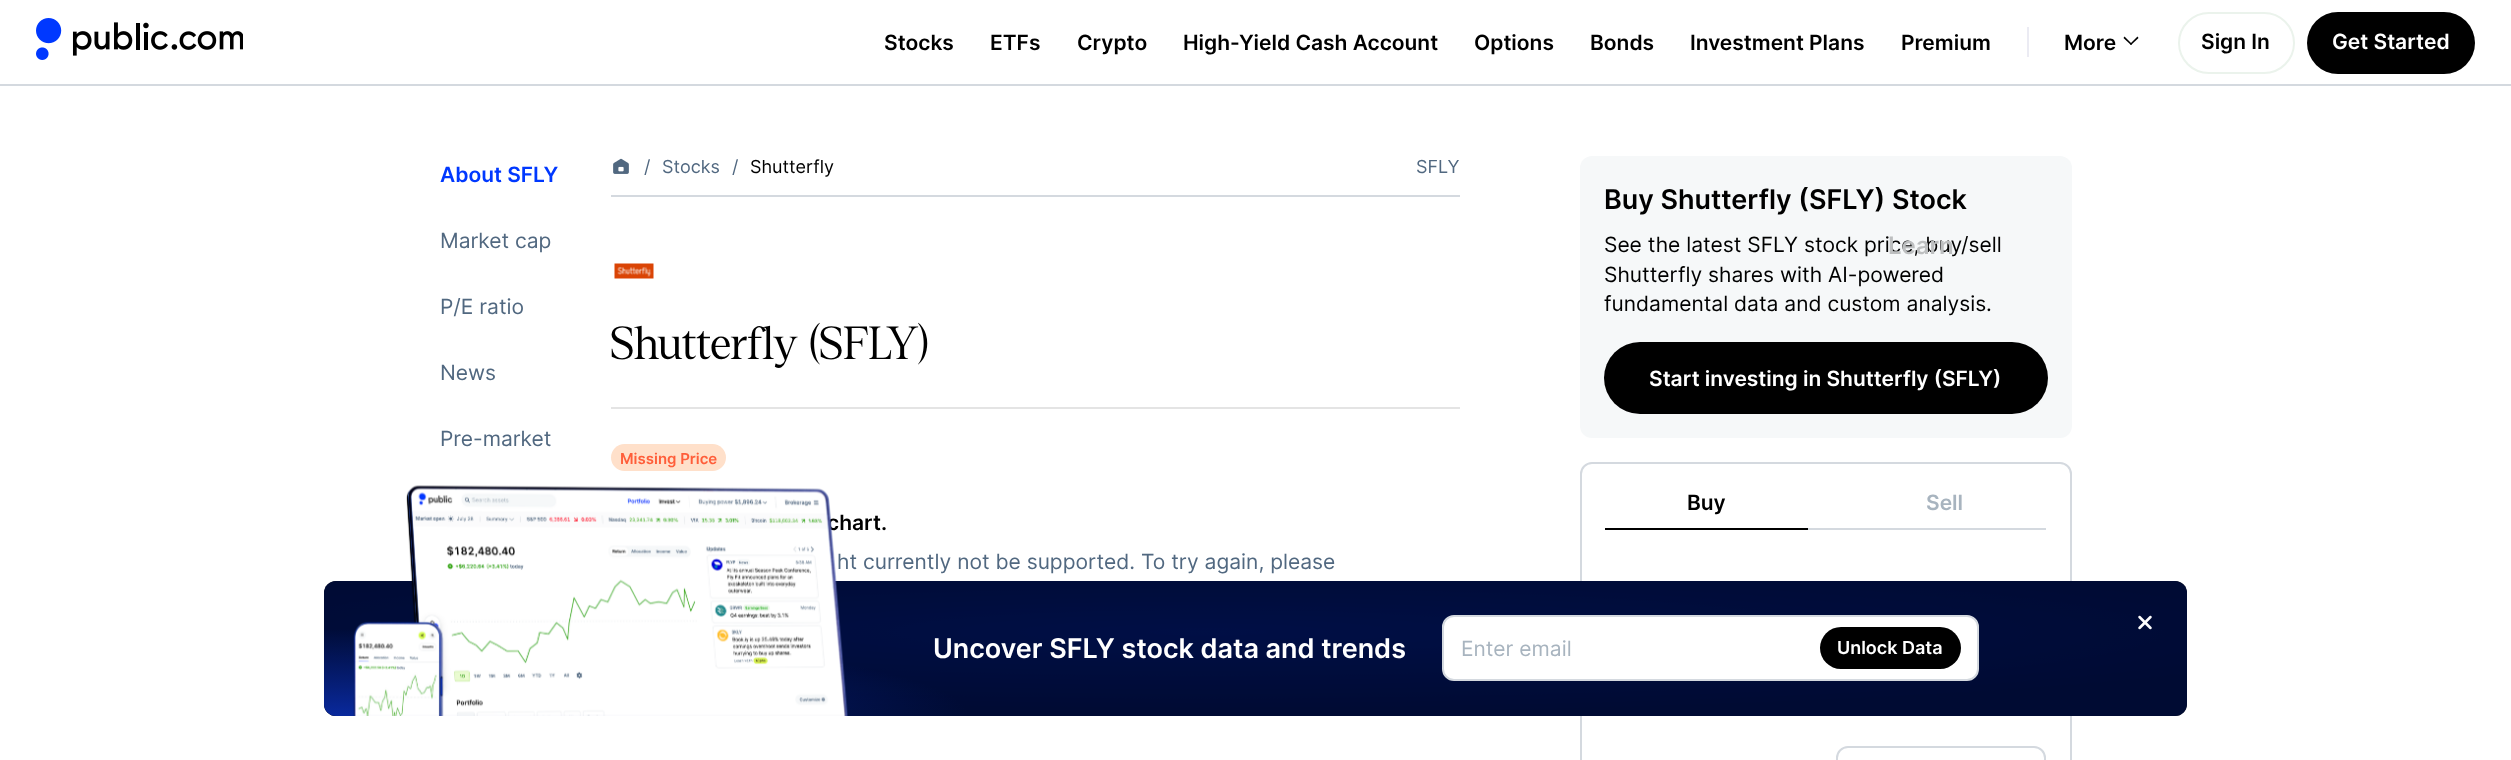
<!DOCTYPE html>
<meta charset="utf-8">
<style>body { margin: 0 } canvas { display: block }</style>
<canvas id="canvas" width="2511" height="760"></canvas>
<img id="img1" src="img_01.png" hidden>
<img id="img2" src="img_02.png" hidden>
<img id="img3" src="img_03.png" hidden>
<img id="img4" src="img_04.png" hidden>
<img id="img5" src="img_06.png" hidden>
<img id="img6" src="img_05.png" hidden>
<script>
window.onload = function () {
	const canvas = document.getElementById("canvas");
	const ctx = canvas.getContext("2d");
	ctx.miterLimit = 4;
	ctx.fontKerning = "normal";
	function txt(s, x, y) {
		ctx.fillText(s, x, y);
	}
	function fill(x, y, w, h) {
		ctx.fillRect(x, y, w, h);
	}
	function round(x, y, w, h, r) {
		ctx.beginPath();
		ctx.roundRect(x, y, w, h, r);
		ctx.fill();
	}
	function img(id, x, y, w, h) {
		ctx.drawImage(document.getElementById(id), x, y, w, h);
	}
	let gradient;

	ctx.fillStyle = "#FFFFFF";
	fill(0, 0, 2511, 760);
	ctx.fillStyle = "#D4D9DF";
	fill(0, 84, 2511, 2);
	img("img1", 36, 18, 26, 42);
	img("img2", 72, 22, 171, 34);
	ctx.fillStyle = "#EBEBF3";
	fill(2027, 27, 2, 30);
	ctx.fillStyle = "#000000";
	ctx.beginPath();
	ctx.moveTo(2137.5, 36.5);
	ctx.lineTo(2138.5, 38);
	ctx.lineTo(2131, 45);
	ctx.lineTo(2130, 44);
	ctx.closePath();
	ctx.fill();
	ctx.beginPath();
	ctx.moveTo(2124.5, 36.5);
	ctx.lineTo(2132, 44);
	ctx.lineTo(2131, 45);
	ctx.lineTo(2123.5, 38);
	ctx.closePath();
	ctx.fill();
	ctx.beginPath();
	ctx.roundRect(2179, 13, 115, 60, 30);
	ctx.strokeStyle = "#EBF3EC";
	ctx.lineWidth = 2;
	ctx.stroke();
	round(2307, 12, 168, 62, 31);
	ctx.fillStyle = "#D4D9DF";
	fill(611, 195, 849, 2);
	img("img3", 613, 158, 16, 16);
	img("img4", 614, 263, 40, 16);
	ctx.fillStyle = "#E4E4E4";
	fill(611, 407, 849, 2);
	ctx.fillStyle = "#FFE0CA";
	round(611, 444, 115, 27, 13.5);
	ctx.fillStyle = "#F6F8F9";
	round(1580, 156, 492, 282, 12);
	ctx.fillStyle = "#000000";
	round(1604, 342, 444, 72, 36);
	ctx.beginPath();
	ctx.roundRect(1581, 463, 490, 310, 11);
	ctx.strokeStyle = "#D4D9DF";
	ctx.stroke();
	fill(1605, 528, 203, 2);
	ctx.fillStyle = "#D4D9DF";
	fill(1808, 528, 238, 2);
	ctx.beginPath();
	ctx.roundRect(1837, 747, 208, 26, 11);
	ctx.stroke();
	gradient = ctx.createRadialGradient(1207, 9051.14, 0, 1207, 9051.14, 1203);
	gradient.addColorStop(0, "#00145D");
	gradient.addColorStop(1, "#000000");
	ctx.fillStyle = gradient;
	ctx.beginPath();
	ctx.roundRect(324, 581, 1863, 135, 12);
	ctx.save();
	ctx.clip();
	ctx.scale(1, 84 / 1203);
	ctx.fillRect(0, 0, 2511, 10885);
	ctx.restore();
	ctx.fillStyle = "rgba(0, 14, 64, 0.8)";
	round(324, 581, 1863, 135, 12);
	gradient = ctx.createRadialGradient(345, 5135.45, 0, 345, 5135.45, 624);
	gradient.addColorStop(0, "#09299D");
	gradient.addColorStop(1, "rgba(9, 41, 157, 0)");
	ctx.fillStyle = gradient;
	ctx.beginPath();
	ctx.roundRect(324, 581, 1863, 135, 12);
	ctx.save();
	ctx.clip();
	ctx.scale(1, 87 / 624);
	ctx.fillRect(0, 0, 2511, 5452);
	ctx.restore();
	img("img5", 2138, 615, 14, 15);
	ctx.fillStyle = "#FFFFFF";
	ctx.beginPath();
	ctx.roundRect(1443, 616, 535, 64, 11);
	ctx.fill();
	ctx.stroke();
	ctx.fillStyle = "#000000";
	round(1820, 627, 141, 42, 21);
	ctx.font = "600 21px Inter";
	txt("Stocks", 884, 50);
	txt("ETFs", 990, 50);
	txt("Crypto", 1077, 50);
	txt("High-Yield Cash Account", 1183, 50);
	txt("Options", 1474, 50);
	txt("Bonds", 1590, 50);
	txt("Investment Plans", 1690, 50);
	txt("More", 2064, 50);
	txt("Sign In", 2201, 49);
	ctx.fillStyle = "#FFFFFF";
	txt("Get Started", 2332, 49);
	ctx.fillStyle = "#000000";
	txt("Premium", 1901, 50);
	ctx.fillStyle = "#0038FF";
	txt("About SFLY", 440, 182);
	ctx.font = "21px Inter";
	ctx.fillStyle = "#516880";
	txt("Market cap", 440, 248);
	txt("P/E ratio", 440, 314);
	txt("News", 440, 380);
	txt("Pre-market", 440, 446);
	ctx.font = "18px Inter";
	txt("/", 644, 173);
	txt("Stocks", 662, 173);
	txt("/", 732, 173);
	ctx.fillStyle = "#000000";
	txt("Shutterfly", 750, 173);
	ctx.fillStyle = "#516880";
	txt("SFLY", 1416, 173);
	ctx.letterSpacing = "0.9px";
	ctx.font = "300 45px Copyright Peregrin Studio";
	ctx.fillStyle = "#000000";
	txt("Shutterfly (SFLY)", 611, 359);
	ctx.letterSpacing = "0px";
	ctx.font = "600 15px Inter";
	ctx.fillStyle = "#FF5E3A";
	txt("Missing Price", 620, 464);
	ctx.font = "600 21px Inter";
	ctx.fillStyle = "#000000";
	txt("chart.", 827, 530);
	ctx.font = "21px Inter";
	ctx.fillStyle = "#516880";
	txt("ht currently not be supported. To try again, please", 837, 569);
	ctx.font = "600 27px Inter";
	ctx.fillStyle = "#000000";
	txt("Buy Shutterfly (SFLY) Stock", 1604, 209);
	ctx.font = "21px Inter";
	txt("See the latest SFLY stock price, buy/sell", 1604, 252);
	ctx.font = "600 24px Inter";
	ctx.fillStyle = "#BDBFC0";
	txt("Learn", 1888, 254);
	ctx.font = "21px Inter";
	ctx.fillStyle = "#000000";
	txt("Shutterfly shares with AI-powered", 1604, 282);
	txt("fundamental data and custom analysis.", 1604, 311);
	ctx.font = "600 21px Inter";
	ctx.fillStyle = "#FFFFFF";
	txt("Start investing in Shutterfly (SFLY)", 1649, 386);
	ctx.fillStyle = "#000000";
	txt("Buy", 1687, 510);
	ctx.fillStyle = "#A8B4BF";
	txt("Sell", 1926, 510);
	img("img6", 353, 485, 495, 231);
	ctx.font = "600 27px Inter";
	ctx.fillStyle = "#FFFFFF";
	txt("Uncover SFLY stock data and trends", 933, 658);
	ctx.font = "21px Inter";
	ctx.fillStyle = "#A8B4BF";
	txt("Enter email", 1461, 656);
	ctx.font = "600 18px Inter";
	ctx.fillStyle = "#FFFFFF";
	txt("Unlock Data", 1837, 654);
};
</script>
